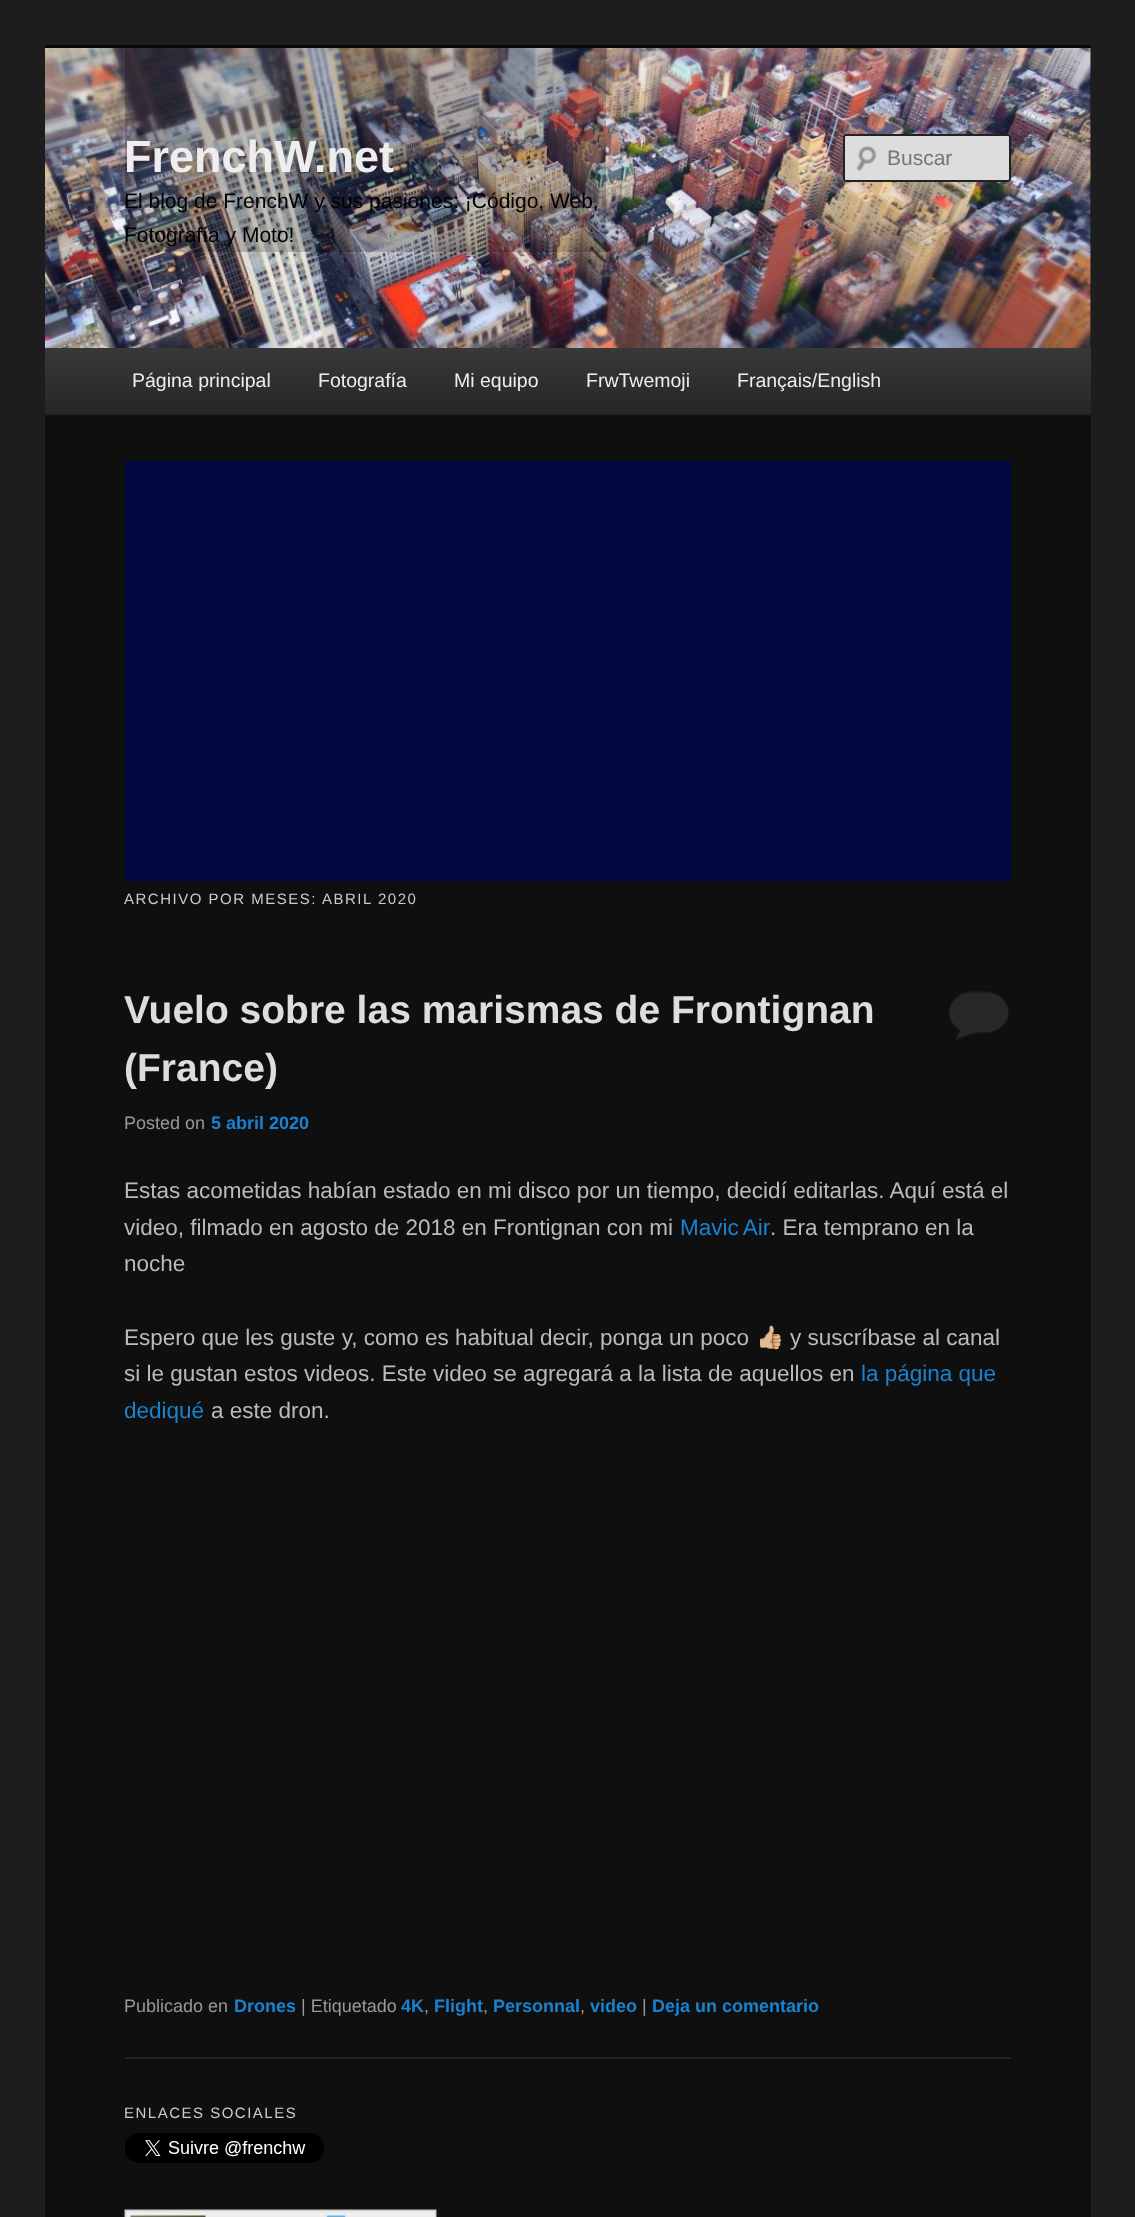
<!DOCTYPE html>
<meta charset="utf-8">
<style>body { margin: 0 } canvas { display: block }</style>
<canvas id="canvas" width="1135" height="2217"></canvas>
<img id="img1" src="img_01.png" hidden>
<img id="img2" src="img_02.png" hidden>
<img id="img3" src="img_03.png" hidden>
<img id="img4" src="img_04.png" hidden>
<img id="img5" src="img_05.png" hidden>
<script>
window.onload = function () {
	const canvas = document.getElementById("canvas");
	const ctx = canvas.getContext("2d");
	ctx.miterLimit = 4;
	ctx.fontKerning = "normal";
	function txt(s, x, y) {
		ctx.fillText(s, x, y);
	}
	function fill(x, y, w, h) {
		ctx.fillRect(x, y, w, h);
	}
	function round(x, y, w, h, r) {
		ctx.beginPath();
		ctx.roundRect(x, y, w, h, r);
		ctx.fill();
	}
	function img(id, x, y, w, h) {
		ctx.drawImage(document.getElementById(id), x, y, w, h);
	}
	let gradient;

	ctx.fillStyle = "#1D1D1D";
	fill(0, 0, 1135, 2217);
	ctx.fillStyle = "#0F0F0F";
	fill(45, 48, 1046, 2169);
	ctx.fillStyle = "#0A0A0A";
	fill(45, 45, 1046, 3);
	img("img1", 45, 48, 1046, 300);
	ctx.fillStyle = "rgba(0, 0, 0, 0.2)";
	fill(125, 48, 481, 137);
	fill(125, 185, 481, 67);
	ctx.fillStyle = "#DDDDDD";
	round(843, 134, 168, 48, 3);
	img("img2", 856, 145, 21, 27);
	ctx.beginPath();
	ctx.roundRect(844, 135, 166, 46, 2);
	ctx.strokeStyle = "#222222";
	ctx.lineWidth = 2;
	ctx.stroke();
	gradient = ctx.createLinearGradient(568, 348, 568, 413);
	gradient.addColorStop(0, "#383838");
	gradient.addColorStop(1, "#272727");
	ctx.fillStyle = gradient;
	fill(45, 348, 1046, 65);
	ctx.fillStyle = "#222222";
	fill(45, 413, 1046, 2);
	ctx.fillStyle = "#00063F";
	fill(125, 461, 886, 420);
	ctx.fillStyle = "#222222";
	fill(125, 2057, 886, 2);
	ctx.fillStyle = "#282828";
	fill(947, 989, 63, 52);
	img("img3", 947, 987, 64, 54);
	img("img4", 125, 2133, 199, 30);
	img("img5", 124, 2209, 313, 8);
	ctx.font = "bold 45px Liberation Sans";
	ctx.fillStyle = "#EEEEEE";
	txt("FrenchW.net", 124, 172);
	ctx.font = "21px Liberation Sans";
	ctx.fillStyle = "#000000";
	txt("El blog de FrenchW y sus pasiones: ¡Código, Web,", 124, 208);
	txt("Fotografía y Moto!", 124, 242);
	ctx.fillStyle = "#757575";
	txt("Buscar", 887, 165);
	ctx.font = "19.5px Liberation Sans";
	ctx.fillStyle = "#EEEEEE";
	txt("Página principal", 132, 387);
	txt("Fotografía", 318, 387);
	txt("Mi equipo", 454, 387);
	txt("FrwTwemoji", 586, 387);
	txt("Français/English", 737, 387);
	ctx.letterSpacing = "1.5px";
	ctx.font = "15px Liberation Sans";
	ctx.fillStyle = "#CCCCCC";
	txt("ARCHIVO POR MESES:", 124, 904);
	txt("ABRIL 2020", 322, 904);
	ctx.letterSpacing = "0px";
	ctx.font = "bold 39px Liberation Sans";
	ctx.fillStyle = "#DDDDDD";
	txt("Vuelo sobre las marismas de Frontignan", 124, 1023);
	txt("(France)", 124, 1081);
	ctx.font = "18px Liberation Sans";
	ctx.fillStyle = "#999999";
	txt("Posted on", 124, 1129);
	ctx.font = "bold 18px Liberation Sans";
	ctx.fillStyle = "#1982D1";
	txt("5 abril 2020", 211, 1129);
	ctx.font = "22.5px Liberation Sans";
	ctx.fillStyle = "#BBBBBB";
	txt("Estas acometidas habían estado en mi disco por un tiempo, decidí editarlas. Aquí está el", 124, 1198);
	txt("video, filmado en agosto de 2018 en Frontignan con mi", 124, 1235);
	ctx.wordSpacing = "-1px";
	ctx.fillStyle = "#1982D1";
	txt("Mavic Air", 680, 1235);
	ctx.wordSpacing = "0px";
	ctx.fillStyle = "#BBBBBB";
	txt(". Era temprano en la", 770, 1235);
	txt("noche", 124, 1271);
	txt("Espero que les guste y, como es habitual decir, ponga un poco", 124, 1345);
	ctx.font = "22.5px Noto Color Emoji";
	txt("👍🏼", 756, 1345);
	ctx.font = "22.5px Liberation Sans";
	txt("y suscríbase al canal", 790, 1345);
	txt("si le gustan estos videos. Este video se agregará a la lista de aquellos en", 124, 1381);
	ctx.fillStyle = "#1982D1";
	txt("la página que", 861, 1381);
	txt("dediqué", 124, 1418);
	ctx.fillStyle = "#BBBBBB";
	txt("a este dron.", 211, 1418);
	ctx.font = "18px Liberation Sans";
	ctx.fillStyle = "#999999";
	txt("Publicado en", 124, 2012);
	ctx.font = "bold 18px Liberation Sans";
	ctx.fillStyle = "#1982D1";
	txt("Drones", 234, 2012);
	ctx.font = "18px Liberation Sans";
	ctx.fillStyle = "#999999";
	txt("| Etiquetado", 301, 2012);
	ctx.font = "bold 18px Liberation Sans";
	ctx.fillStyle = "#1982D1";
	txt("4K", 401, 2012);
	txt("Flight", 434, 2012);
	txt("Personnal", 493, 2012);
	txt("video", 590, 2012);
	ctx.font = "18px Liberation Sans";
	ctx.fillStyle = "#999999";
	txt("|", 642, 2012);
	ctx.font = "bold 18px Liberation Sans";
	ctx.fillStyle = "#1982D1";
	txt("Deja un comentario", 652, 2012);
	ctx.font = "18px Liberation Sans";
	ctx.fillStyle = "#999999";
	txt(",", 424, 2012);
	txt(",", 483, 2012);
	txt(",", 580, 2012);
	ctx.letterSpacing = "1.5px";
	ctx.font = "15px Liberation Sans";
	ctx.fillStyle = "#CCCCCC";
	txt("ENLACES SOCIALES", 124, 2118);
};
</script>
